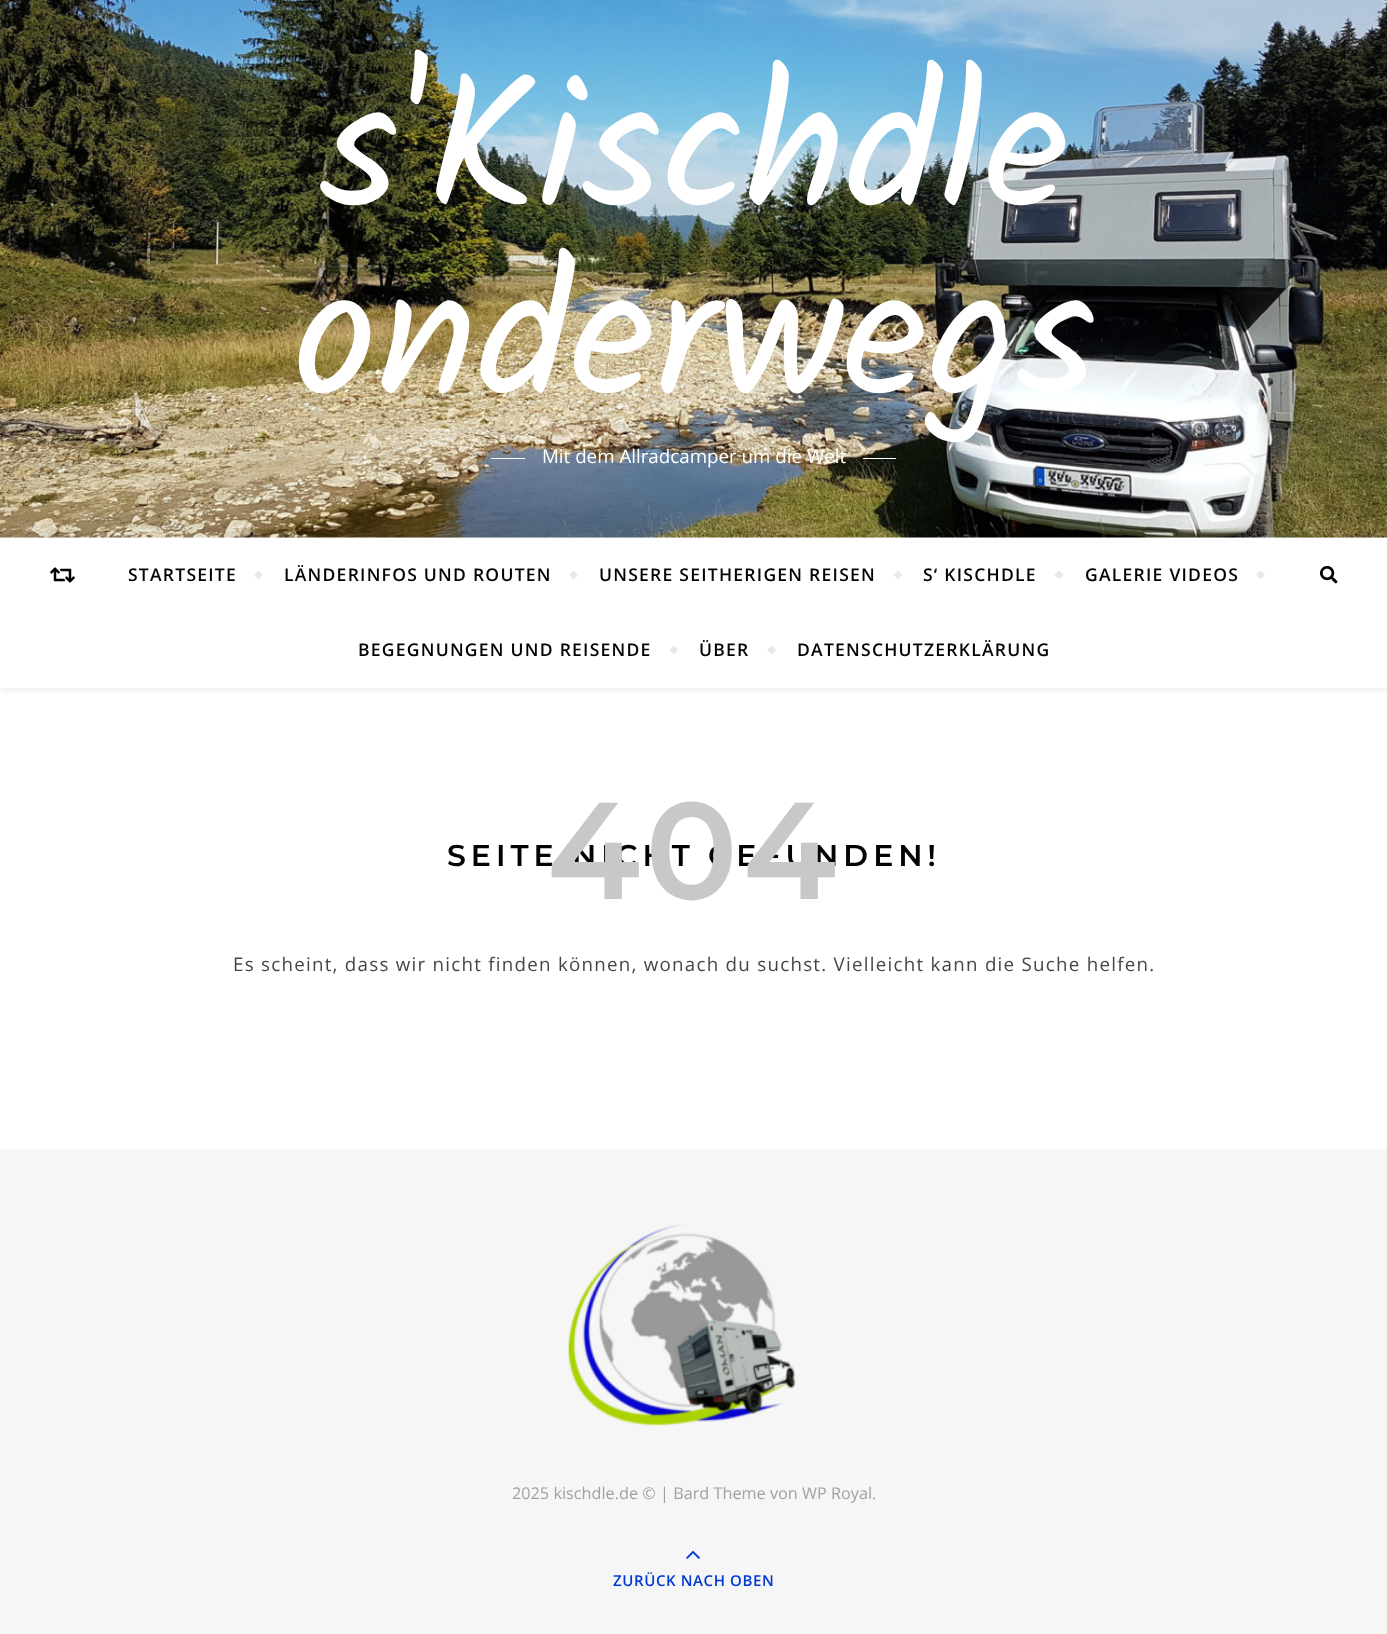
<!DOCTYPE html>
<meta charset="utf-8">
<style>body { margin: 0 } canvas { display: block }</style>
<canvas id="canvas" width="1387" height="1634"></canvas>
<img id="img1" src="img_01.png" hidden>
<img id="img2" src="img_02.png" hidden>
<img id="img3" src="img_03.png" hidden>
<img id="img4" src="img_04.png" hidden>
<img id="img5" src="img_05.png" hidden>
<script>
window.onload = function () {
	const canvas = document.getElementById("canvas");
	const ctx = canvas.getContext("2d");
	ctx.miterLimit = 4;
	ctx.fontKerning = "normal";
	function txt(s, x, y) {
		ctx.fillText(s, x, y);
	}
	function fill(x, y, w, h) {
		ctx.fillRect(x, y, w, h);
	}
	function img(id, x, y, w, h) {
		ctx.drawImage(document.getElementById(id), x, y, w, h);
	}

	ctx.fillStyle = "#FFFFFF";
	fill(0, 0, 1387, 1634);
	img("img1", 0, 0, 1387, 538);
	fill(491, 458, 34, 1);
	fill(863, 458, 33, 1);
	ctx.fillStyle = "rgba(0, 0, 0, 0.1)";
	ctx.filter = "blur(3px)";
	ctx.beginPath();
	ctx.rect(0, 539, 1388, 150);
	ctx.fill();
	ctx.filter = "none";
	ctx.fillStyle = "#FFFFFF";
	fill(0, 538, 1387, 150);
	img("img2", 50, 567, 25, 16);
	ctx.fillStyle = "#E8E8E8";
	ctx.beginPath();
	ctx.moveTo(254, 575);
	ctx.lineTo(258.5, 570.5);
	ctx.lineTo(263, 575);
	ctx.lineTo(258.5, 579.5);
	ctx.closePath();
	ctx.fill();
	ctx.beginPath();
	ctx.moveTo(569, 575);
	ctx.lineTo(573.5, 570.5);
	ctx.lineTo(578, 575);
	ctx.lineTo(573.5, 579.5);
	ctx.closePath();
	ctx.fill();
	ctx.beginPath();
	ctx.moveTo(893.5, 575);
	ctx.lineTo(898, 570.5);
	ctx.lineTo(902.5, 575);
	ctx.lineTo(898, 579.5);
	ctx.closePath();
	ctx.fill();
	ctx.beginPath();
	ctx.moveTo(1054.5, 575);
	ctx.lineTo(1059, 570.5);
	ctx.lineTo(1063.5, 575);
	ctx.lineTo(1059, 579.5);
	ctx.closePath();
	ctx.fill();
	ctx.beginPath();
	ctx.moveTo(1256, 575);
	ctx.lineTo(1260.5, 570.5);
	ctx.lineTo(1265, 575);
	ctx.lineTo(1260.5, 579.5);
	ctx.closePath();
	ctx.fill();
	ctx.beginPath();
	ctx.moveTo(669.5, 650);
	ctx.lineTo(674, 645.5);
	ctx.lineTo(678, 650);
	ctx.lineTo(674, 654.5);
	ctx.closePath();
	ctx.fill();
	ctx.beginPath();
	ctx.moveTo(767, 650);
	ctx.lineTo(771.5, 645.5);
	ctx.lineTo(776, 650);
	ctx.lineTo(771.5, 654.5);
	ctx.closePath();
	ctx.fill();
	img("img3", 1320, 565, 18, 19);
	ctx.fillStyle = "#F6F6F6";
	fill(0, 1149, 1387, 485);
	img("img4", 568, 1224, 229, 202);
	img("img5", 686, 1550, 14, 9);
	ctx.font = "187.5px Kalam";
	ctx.fillStyle = "#FFFFFF";
	txt("s'Kischdle", 319, 208);
	txt("onderwegs", 292, 396);
	ctx.font = "18.75px Open Sans";
	txt("Mit dem Allradcamper um die Welt", 542, 463);
	ctx.letterSpacing = "1.25px";
	ctx.font = "600 17.5px Open Sans";
	ctx.fillStyle = "#030303";
	txt("STARTSEITE", 128, 581);
	txt("LÄNDERINFOS UND ROUTEN", 284, 581);
	txt("UNSERE SEITHERIGEN REISEN", 599, 581);
	txt("S‘ KISCHDLE", 923, 581);
	txt("GALERIE VIDEOS", 1085, 581);
	txt("BEGEGNUNGEN UND REISENDE", 358, 656);
	txt("ÜBER", 699, 656);
	txt("DATENSCHUTZERKLÄRUNG", 797, 656);
	ctx.letterSpacing = "5px";
	ctx.font = "600 30px Montserrat";
	txt("SEITE NICHT GEFUNDEN!", 447, 866);
	ctx.font = "600 137.5px Montserrat";
	ctx.fillStyle = "#C8C8C8";
	txt("404", 547, 899);
	ctx.letterSpacing = "1.25px";
	ctx.font = "18.75px Open Sans";
	ctx.fillStyle = "#464646";
	txt("Es scheint, dass wir nicht finden können, wonach du suchst. Vielleicht kann die Suche helfen.", 233, 971);
	ctx.letterSpacing = "0px";
	ctx.font = "16.25px Open Sans";
	ctx.fillStyle = "#A1A1A1";
	txt("2025 kischdle.de © | Bard Theme von WP Royal.", 512, 1499);
	ctx.letterSpacing = "0.6px";
	ctx.font = "600 15px Open Sans";
	ctx.fillStyle = "#0038D3";
	txt("ZURÜCK NACH OBEN", 613, 1586);
};
</script>
